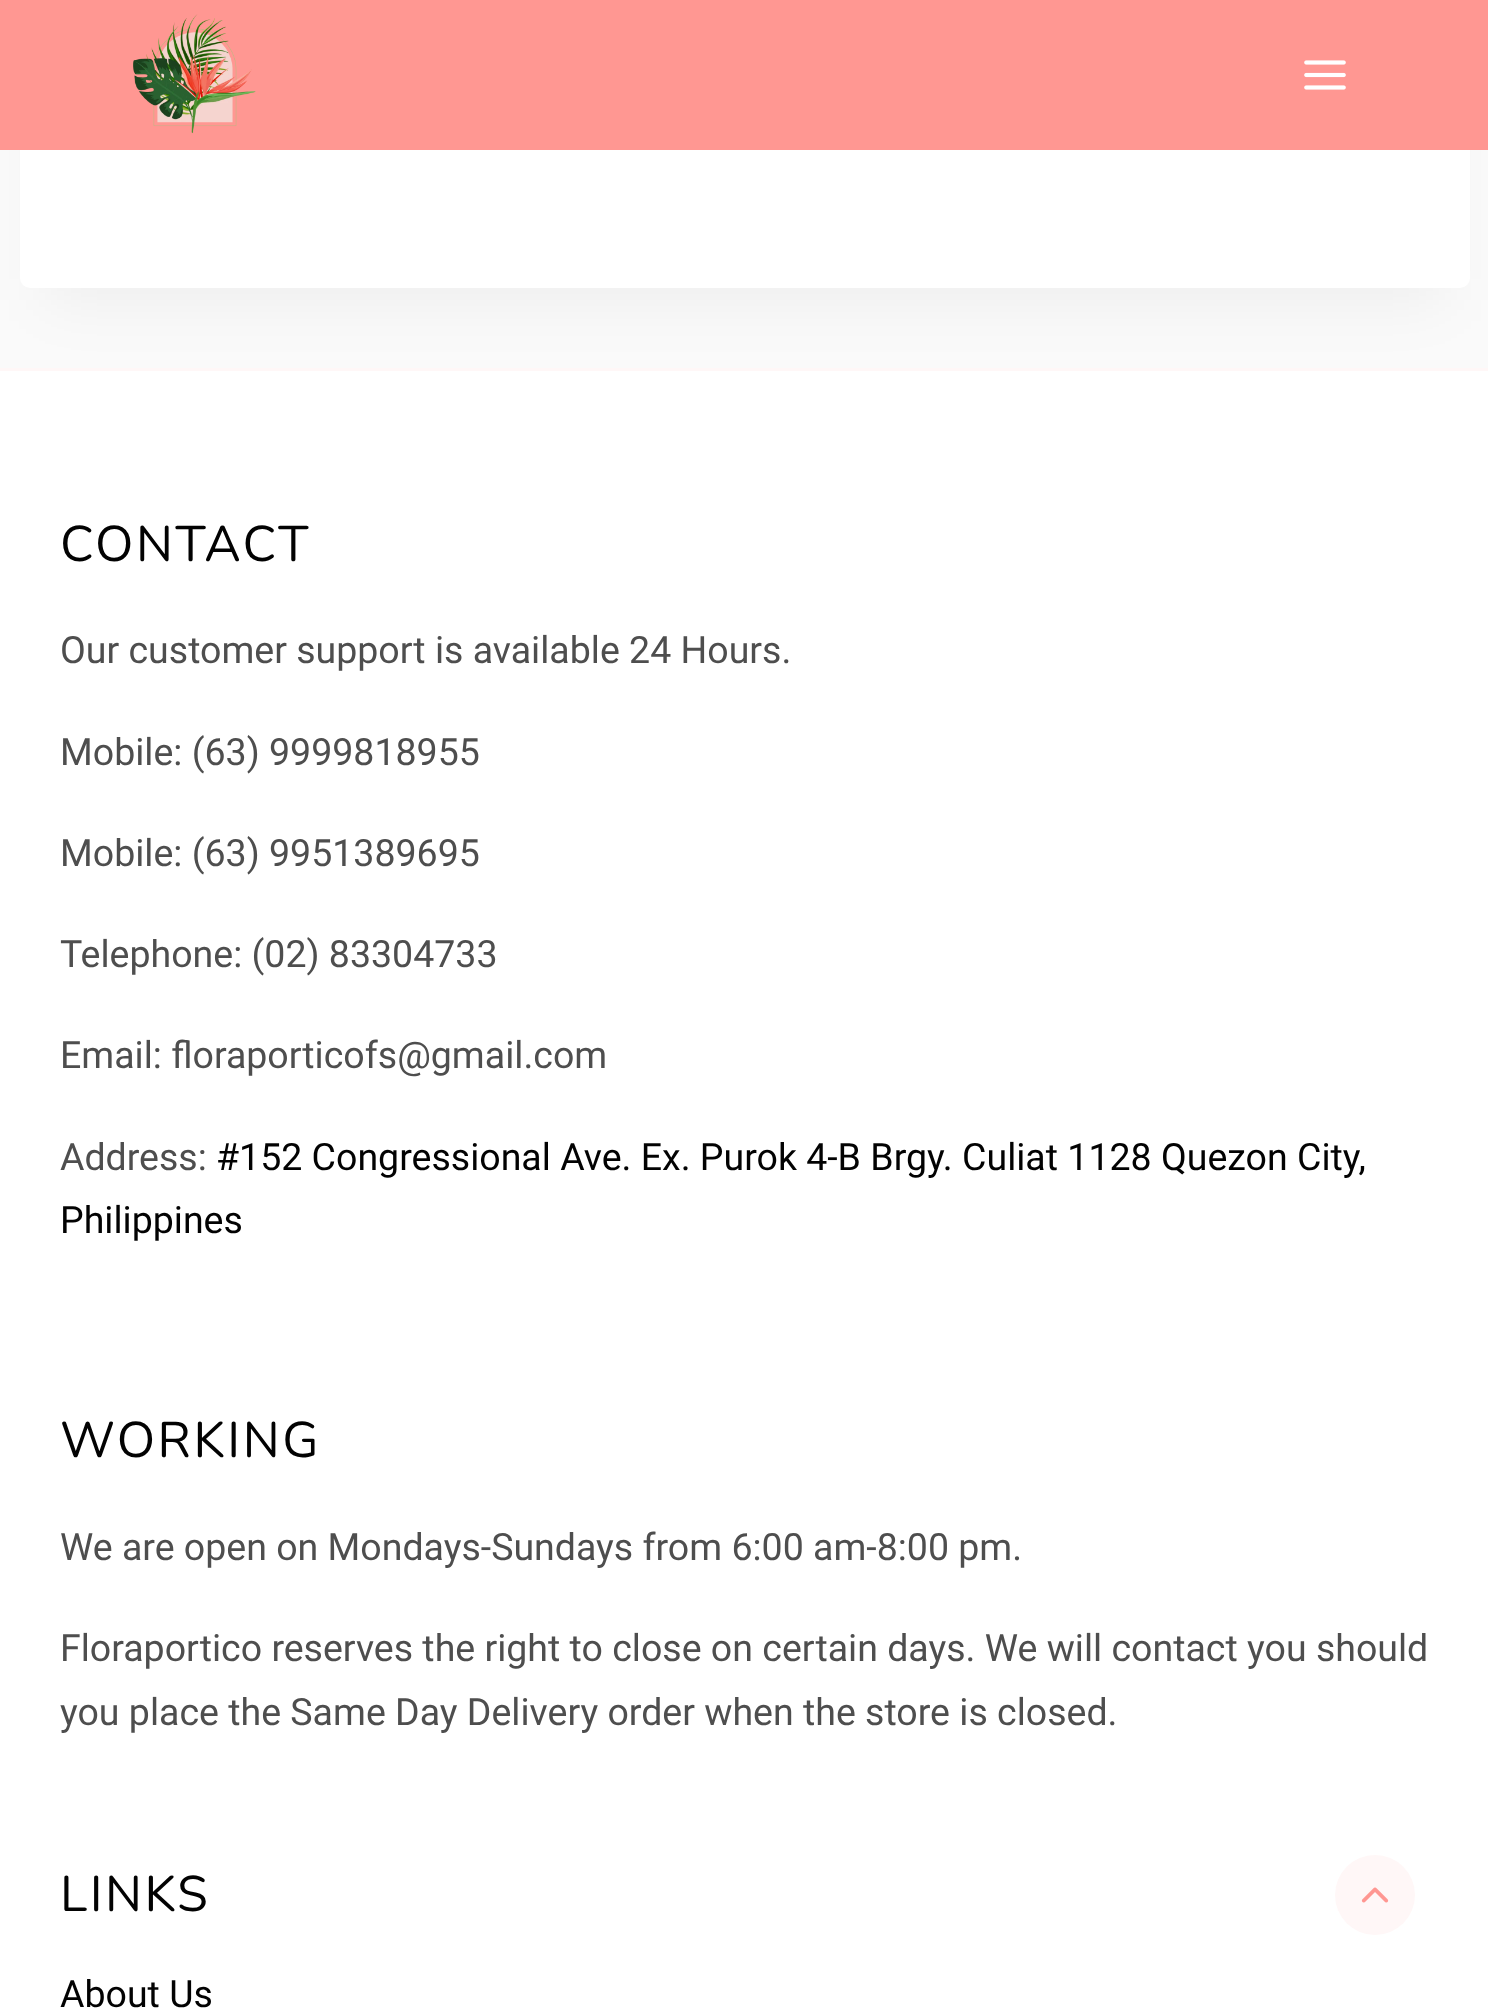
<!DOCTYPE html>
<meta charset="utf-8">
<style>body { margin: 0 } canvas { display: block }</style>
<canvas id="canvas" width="1488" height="2009"></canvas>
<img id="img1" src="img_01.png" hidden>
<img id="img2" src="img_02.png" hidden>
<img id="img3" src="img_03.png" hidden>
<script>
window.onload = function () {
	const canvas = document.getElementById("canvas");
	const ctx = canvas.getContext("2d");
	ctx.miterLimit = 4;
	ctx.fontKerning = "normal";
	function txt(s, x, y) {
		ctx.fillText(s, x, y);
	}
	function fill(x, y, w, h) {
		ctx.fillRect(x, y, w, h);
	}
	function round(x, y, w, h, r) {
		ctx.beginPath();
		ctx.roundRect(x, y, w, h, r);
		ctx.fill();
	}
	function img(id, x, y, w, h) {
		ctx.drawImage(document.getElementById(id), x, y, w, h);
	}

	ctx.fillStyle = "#FAFAFA";
	fill(0, 0, 1488, 2009);
	ctx.fillStyle = "#FFFFFF";
	fill(0, 371, 1488, 1638);
	ctx.fillStyle = "#FFF7F7";
	fill(0, 368, 1488, 3);
	ctx.fillStyle = "rgba(0, 0, 0, 0.05)";
	ctx.filter = "blur(31px)";
	ctx.beginPath();
	ctx.rect(45, -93, 1400, 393);
	ctx.fill();
	ctx.filter = "none";
	ctx.fillStyle = "#FFFFFF";
	round(20, -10, 1450, 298, 10);
	ctx.fillStyle = "#FF9792";
	fill(0, 0, 1488, 150);
	img("img1", 133, 14, 123, 120);
	img("img2", 1304, 60, 42, 30);
	ctx.fillStyle = "#FFF7F7";
	ctx.beginPath();
	ctx.arc(1375, 1895, 40, 0, Math.PI * 2);
	ctx.fill();
	img("img3", 1361, 1887, 28, 16);
	ctx.letterSpacing = "2.5px";
	ctx.font = "200 50px Nunito";
	ctx.fillStyle = "#020202";
	txt("CONTACT", 60, 561);
	ctx.letterSpacing = "0px";
	ctx.font = "37.5px Roboto";
	ctx.fillStyle = "#4E4E4E";
	txt("Our customer support is available 24 Hours.", 60, 663);
	txt("Mobile: (63) 9999818955", 60, 765);
	txt("Mobile: (63) 9951389695", 60, 866);
	txt("Telephone: (02) 83304733", 60, 967);
	txt("Email: floraporticofs@gmail.com", 60, 1068);
	txt("Address:", 60, 1170);
	ctx.fillStyle = "#020202";
	txt("#152 Congressional Ave. Ex. Purok 4-B Brgy. Culiat 1128 Quezon City,", 216, 1170);
	txt("Philippines", 60, 1233);
	ctx.letterSpacing = "2.5px";
	ctx.font = "200 50px Nunito";
	txt("WORKING", 60, 1457);
	ctx.letterSpacing = "0px";
	ctx.font = "37.5px Roboto";
	ctx.fillStyle = "#4E4E4E";
	txt("We are open on Mondays-Sundays from 6:00 am-8:00 pm.", 60, 1560);
	txt("Floraportico reserves the right to close on certain days. We will contact you should", 60, 1661);
	txt("you place the Same Day Delivery order when the store is closed.", 60, 1725);
	ctx.letterSpacing = "2.5px";
	ctx.font = "200 50px Nunito";
	ctx.fillStyle = "#020202";
	txt("LINKS", 60, 1911);
	ctx.letterSpacing = "0px";
	ctx.font = "37.5px Roboto";
	txt("About Us", 60, 2007);
};
</script>
